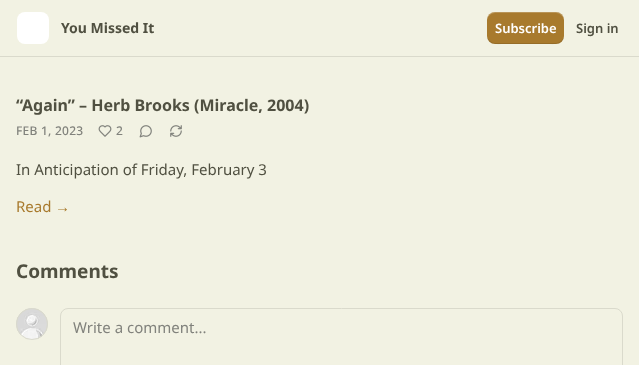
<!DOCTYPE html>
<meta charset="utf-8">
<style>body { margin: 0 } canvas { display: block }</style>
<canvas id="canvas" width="639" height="365"></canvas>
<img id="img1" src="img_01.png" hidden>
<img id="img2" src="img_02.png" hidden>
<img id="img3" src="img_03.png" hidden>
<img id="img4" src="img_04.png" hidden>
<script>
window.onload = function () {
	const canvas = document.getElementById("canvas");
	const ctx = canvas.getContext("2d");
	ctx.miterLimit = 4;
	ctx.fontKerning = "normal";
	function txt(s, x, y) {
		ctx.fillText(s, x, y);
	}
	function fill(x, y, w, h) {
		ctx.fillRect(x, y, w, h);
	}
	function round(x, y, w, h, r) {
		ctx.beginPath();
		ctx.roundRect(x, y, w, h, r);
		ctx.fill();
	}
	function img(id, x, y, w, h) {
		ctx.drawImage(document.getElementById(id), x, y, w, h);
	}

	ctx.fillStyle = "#F2F2E3";
	fill(0, 0, 639, 365);
	ctx.fillStyle = "#DADACC";
	fill(0, 56, 639, 1);
	ctx.fillStyle = "#FFFFFF";
	round(17, 12, 32, 32, 8);
	ctx.fillStyle = "#A87A2D";
	round(487, 12, 77, 32, 8);
	ctx.fillStyle = "rgba(0, 0, 0, 0.1)";
	ctx.beginPath();
	ctx.moveTo(487, 35);
	ctx.bezierCurveTo(487, 46, 497, 44, 505, 44);
	ctx.lineTo(546, 44);
	ctx.bezierCurveTo(554, 44, 564, 46, 564, 35);
	ctx.bezierCurveTo(564, 39, 560, 43, 556, 43);
	ctx.lineTo(495, 43);
	ctx.bezierCurveTo(491, 43, 487, 39, 487, 35);
	ctx.closePath();
	ctx.fill();
	ctx.fillStyle = "rgba(255, 255, 255, 0.2)";
	ctx.beginPath();
	ctx.moveTo(495, 13);
	ctx.lineTo(556, 13);
	ctx.bezierCurveTo(560, 13, 564, 17, 564, 21);
	ctx.bezierCurveTo(564, 10, 554, 12, 546, 12);
	ctx.lineTo(505, 12);
	ctx.bezierCurveTo(497, 12, 487, 10, 487, 21);
	ctx.bezierCurveTo(487, 17, 491, 13, 495, 13);
	ctx.closePath();
	ctx.fill();
	img("img1", 98, 125, 14, 12);
	img("img2", 139, 125, 13, 13);
	img("img3", 170, 125, 12, 12);
	ctx.beginPath();
	ctx.arc(32, 324, 15.5, 0, Math.PI * 2);
	ctx.strokeStyle = "#DADACC";
	ctx.stroke();
	img("img4", 16, 308, 32, 32);
	ctx.beginPath();
	ctx.arc(32, 324, 15.5, 0, Math.PI * 2);
	ctx.stroke();
	ctx.beginPath();
	ctx.roundRect(60.5, 308.5, 562, 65, 7.5);
	ctx.stroke();
	ctx.font = "bold 14px Noto Sans";
	ctx.fillStyle = "#505041";
	txt("You Missed It", 61, 33);
	ctx.font = "600 13px Noto Sans";
	ctx.fillStyle = "#FFFFFF";
	txt("Subscribe", 495, 33);
	ctx.fillStyle = "#505041";
	txt("Sign in", 576, 33);
	ctx.font = "bold 16px Noto Sans";
	txt("“Again” – Herb Brooks (Miracle, 2004)", 16, 111);
	ctx.letterSpacing = "0.25px";
	ctx.font = "500 12px Noto Sans";
	ctx.fillStyle = "#81827C";
	txt("FEB 1, 2023", 16, 135);
	txt("2", 116, 135);
	ctx.letterSpacing = "0px";
	ctx.font = "15px Noto Sans";
	ctx.fillStyle = "#505041";
	txt("In Anticipation of Friday, February 3", 16, 175);
	ctx.fillStyle = "#A87A2D";
	txt("Read", 16, 212);
	ctx.font = "15px Liberation Sans";
	txt("→", 55, 212);
	ctx.font = "bold 19px Noto Sans";
	ctx.fillStyle = "#505041";
	txt("Comments", 16, 278);
	ctx.font = "15px Noto Sans";
	ctx.fillStyle = "#81827C";
	txt("Write a comment...", 73, 333);
};
</script>
